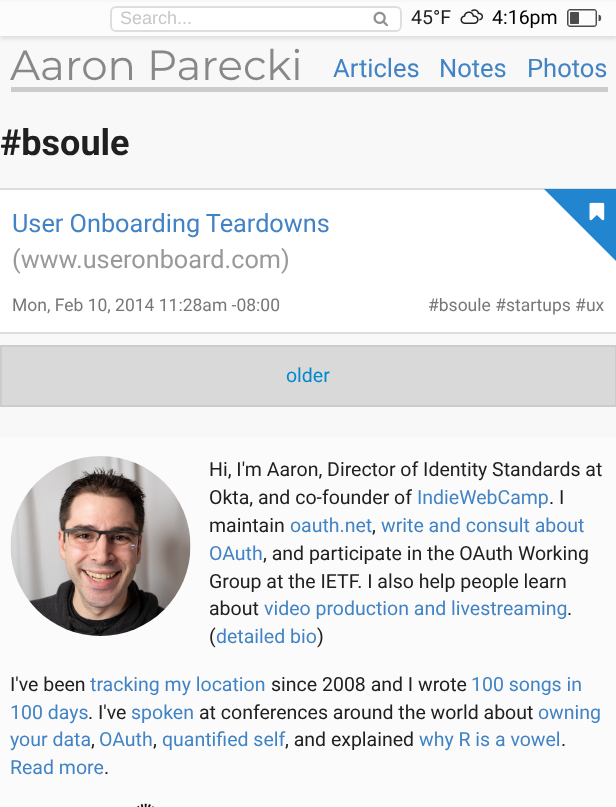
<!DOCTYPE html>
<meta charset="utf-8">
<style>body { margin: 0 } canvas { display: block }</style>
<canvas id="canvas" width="616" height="807"></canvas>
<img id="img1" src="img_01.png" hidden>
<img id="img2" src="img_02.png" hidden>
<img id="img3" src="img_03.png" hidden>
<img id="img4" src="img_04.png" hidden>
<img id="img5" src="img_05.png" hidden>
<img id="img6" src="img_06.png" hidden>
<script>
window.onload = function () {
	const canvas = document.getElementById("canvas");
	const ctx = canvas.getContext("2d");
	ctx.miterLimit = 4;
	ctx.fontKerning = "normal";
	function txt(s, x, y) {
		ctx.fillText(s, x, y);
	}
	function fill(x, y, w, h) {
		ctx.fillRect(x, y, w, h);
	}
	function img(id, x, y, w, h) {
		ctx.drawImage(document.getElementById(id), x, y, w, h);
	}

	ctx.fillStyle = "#F8F8F8";
	fill(0, 0, 616, 807);
	ctx.fillStyle = "rgba(0, 0, 0, 0.1)";
	ctx.filter = "blur(2px)";
	ctx.beginPath();
	ctx.rect(0, 5, 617, 34);
	ctx.fill();
	ctx.filter = "none";
	ctx.fillStyle = "#FCFCFC";
	fill(0, 2, 616, 34);
	ctx.fillStyle = "#FFFFFF";
	ctx.beginPath();
	ctx.roundRect(111, 7, 290, 24, 5);
	ctx.fill();
	ctx.strokeStyle = "#DEDEDE";
	ctx.lineWidth = 2;
	ctx.stroke();
	img("img1", 373, 11, 15, 16);
	img("img2", 460, 9, 24, 15);
	img("img3", 567, 9, 35, 18);
	ctx.fillStyle = "#CCCCCC";
	fill(11, 87, 597, 5);
	ctx.fillStyle = "#FFFFFF";
	fill(0, 190, 616, 142);
	ctx.fillStyle = "#DDDDDD";
	fill(0, 188, 616, 2);
	fill(0, 332, 616, 2);
	ctx.fillStyle = "#2185D0";
	ctx.beginPath();
	ctx.moveTo(616, 189);
	ctx.lineTo(616, 261);
	ctx.lineTo(544, 189);
	ctx.closePath();
	ctx.fill();
	img("img4", 589, 202, 16, 19);
	ctx.fillStyle = "#D9D9D9";
	ctx.beginPath();
	ctx.rect(1, 346, 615, 60);
	ctx.fill();
	ctx.strokeStyle = "#CCCCCC";
	ctx.stroke();
	ctx.fillStyle = "#FBFBFB";
	fill(0, 437, 616, 370);
	img("img5", 10, 456, 181, 180);
	img("img6", 137, 803, 17, 4);
	ctx.font = "18px Liberation Sans";
	ctx.fillStyle = "#C7C7C7";
	txt("Search...", 120, 24);
	ctx.font = "19.5px Roboto";
	ctx.fillStyle = "#202020";
	txt("45°F", 411, 24);
	ctx.fillStyle = "#000000";
	txt("4:16pm", 492, 24);
	ctx.font = "42px Montserrat";
	ctx.fillStyle = "#888888";
	txt("Aaron Parecki", 10, 80);
	ctx.font = "25.5px Roboto";
	ctx.fillStyle = "#4183C4";
	txt("Articles", 333, 77);
	txt("Notes", 439, 77);
	txt("Photos", 527, 77);
	ctx.font = "bold 36px Roboto";
	ctx.fillStyle = "#202020";
	txt("#bsoule", 0, 155);
	ctx.font = "25.25px Roboto";
	ctx.fillStyle = "#4183C4";
	txt("User Onboarding Teardowns", 12, 232);
	ctx.fillStyle = "#999999";
	txt("(www.useronboard.com)", 12, 268);
	ctx.font = "17.5px Roboto";
	ctx.fillStyle = "#777777";
	txt("Mon, Feb 10, 2014 11:28am -08:00", 12, 311);
	txt("#bsoule #startups #ux", 428, 311);
	ctx.font = "19.5px Roboto";
	ctx.fillStyle = "#0088CC";
	txt("older", 286, 382);
	ctx.fillStyle = "#202020";
	txt("Hi, I'm Aaron, Director of Identity Standards at", 209, 476);
	txt("Okta, and co-founder of", 209, 504);
	ctx.fillStyle = "#4183C4";
	txt("IndieWebCamp", 417, 504);
	ctx.fillStyle = "#202020";
	txt(". I", 549, 504);
	txt("maintain", 209, 532);
	ctx.fillStyle = "#4183C4";
	txt("oauth.net", 290, 532);
	ctx.fillStyle = "#202020";
	txt(",", 372, 532);
	ctx.fillStyle = "#4183C4";
	txt("write and consult about", 381, 532);
	txt("OAuth", 209, 560);
	ctx.fillStyle = "#202020";
	txt(", and participate in the OAuth Working", 263, 560);
	txt("Group at the IETF. I also help people learn", 209, 588);
	txt("about", 209, 615);
	ctx.fillStyle = "#4183C4";
	txt("video production and livestreaming", 264, 615);
	ctx.fillStyle = "#202020";
	txt(".", 567, 615);
	txt("(", 209, 643);
	ctx.fillStyle = "#4183C4";
	txt("detailed bio", 216, 643);
	ctx.fillStyle = "#202020";
	txt(")", 317, 643);
	txt("I've been", 10, 691);
	ctx.fillStyle = "#4183C4";
	txt("tracking my location", 90, 691);
	ctx.fillStyle = "#202020";
	txt("since 2008 and I wrote", 271, 691);
	ctx.fillStyle = "#4183C4";
	txt("100 songs in", 471, 691);
	txt("100 days", 10, 719);
	ctx.fillStyle = "#202020";
	txt(". I've", 88, 719);
	ctx.fillStyle = "#4183C4";
	txt("spoken", 131, 719);
	ctx.fillStyle = "#202020";
	txt("at conferences around the world about", 199, 719);
	ctx.fillStyle = "#4183C4";
	txt("owning", 538, 719);
	txt("your data", 10, 746);
	ctx.fillStyle = "#202020";
	txt(",", 91, 746);
	ctx.fillStyle = "#4183C4";
	txt("OAuth", 99, 746);
	ctx.fillStyle = "#202020";
	txt(",", 153, 746);
	ctx.fillStyle = "#4183C4";
	txt("quantified self", 162, 746);
	ctx.fillStyle = "#202020";
	txt(", and explained", 285, 746);
	ctx.fillStyle = "#4183C4";
	txt("why R is a vowel", 419, 746);
	ctx.fillStyle = "#202020";
	txt(".", 561, 746);
	ctx.fillStyle = "#4183C4";
	txt("Read more", 10, 774);
	ctx.fillStyle = "#202020";
	txt(".", 104, 774);
};
</script>
